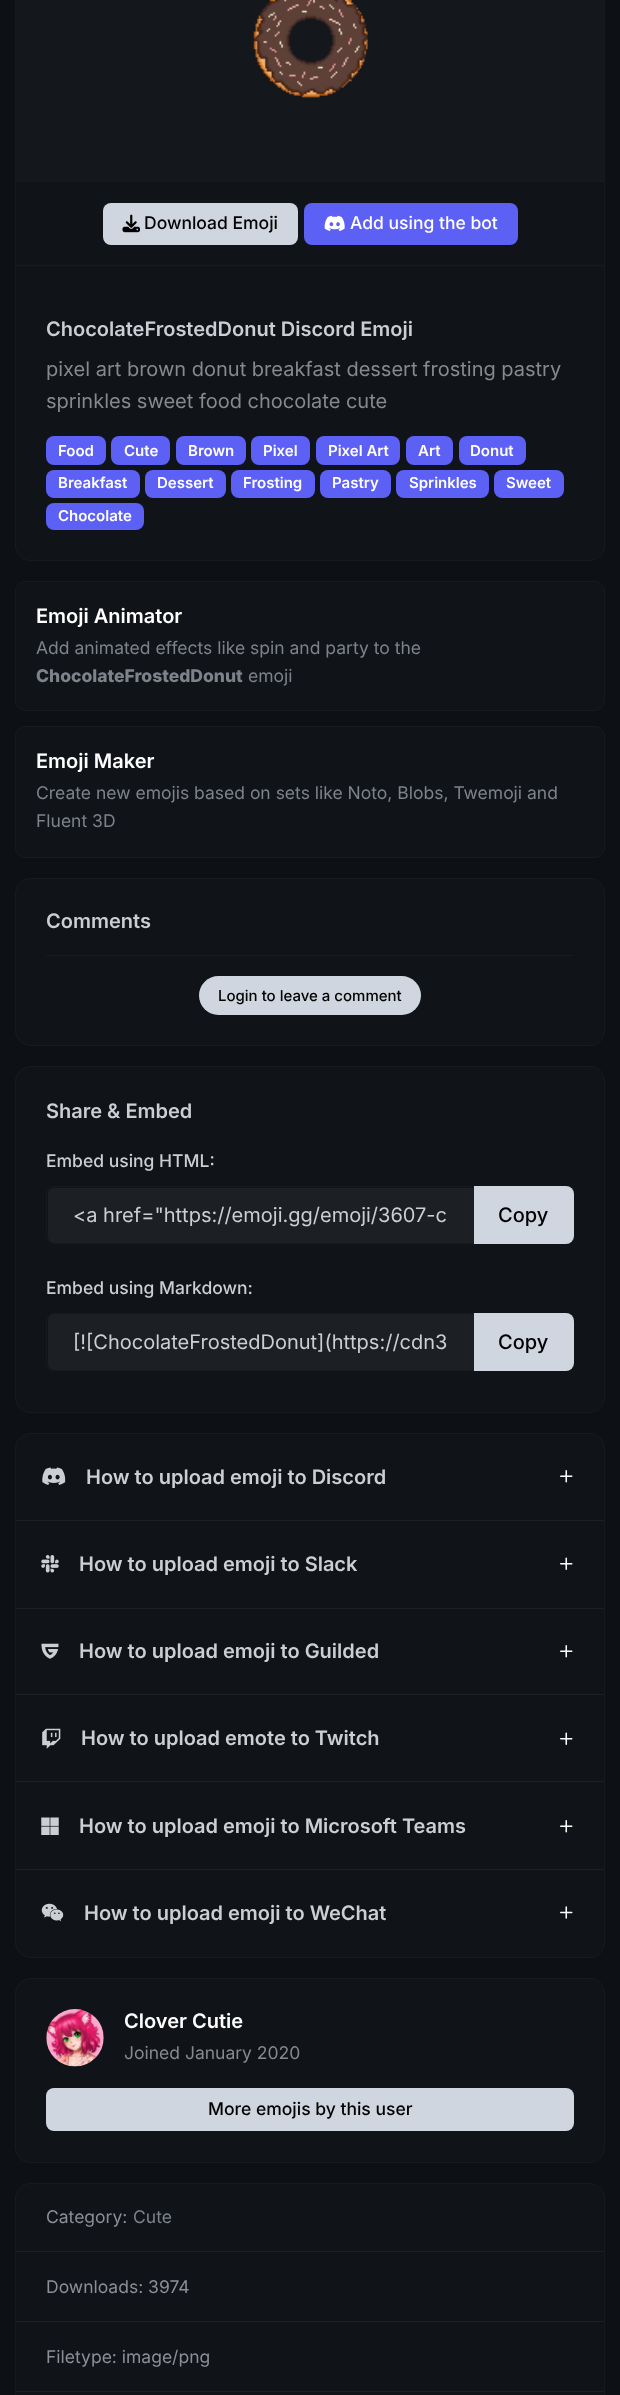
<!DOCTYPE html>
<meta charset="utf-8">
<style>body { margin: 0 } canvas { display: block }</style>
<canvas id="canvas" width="620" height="2395"></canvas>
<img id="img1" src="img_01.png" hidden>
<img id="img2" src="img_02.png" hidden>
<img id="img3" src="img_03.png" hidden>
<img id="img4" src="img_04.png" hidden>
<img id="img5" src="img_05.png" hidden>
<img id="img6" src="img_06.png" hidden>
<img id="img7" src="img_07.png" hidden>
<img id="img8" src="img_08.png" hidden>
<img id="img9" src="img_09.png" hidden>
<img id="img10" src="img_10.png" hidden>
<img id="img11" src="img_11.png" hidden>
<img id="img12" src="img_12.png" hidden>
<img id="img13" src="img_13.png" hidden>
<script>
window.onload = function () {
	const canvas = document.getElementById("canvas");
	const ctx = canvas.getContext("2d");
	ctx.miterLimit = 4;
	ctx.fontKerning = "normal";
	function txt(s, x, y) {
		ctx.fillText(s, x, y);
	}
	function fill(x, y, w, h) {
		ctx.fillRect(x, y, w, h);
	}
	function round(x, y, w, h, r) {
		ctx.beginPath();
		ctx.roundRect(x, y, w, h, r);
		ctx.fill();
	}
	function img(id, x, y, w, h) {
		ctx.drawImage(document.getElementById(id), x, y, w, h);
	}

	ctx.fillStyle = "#0D1014";
	fill(0, 0, 620, 2395);
	ctx.fillStyle = "#101318";
	ctx.beginPath();
	ctx.roundRect(15.5, -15.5, 589, 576, 14.5);
	ctx.fill();
	ctx.strokeStyle = "#181A20";
	ctx.stroke();
	ctx.fillStyle = "#14171C";
	fill(16, 0, 588, 181);
	ctx.fillStyle = "#181A20";
	fill(16, 181, 588, 1);
	img("img1", 253, 0, 115, 98);
	fill(16, 265, 588, 1);
	ctx.fillStyle = "#CFD6DF";
	round(103, 203, 195, 42, 8);
	img("img2", 122, 214, 18, 19);
	ctx.fillStyle = "#5C60F5";
	round(304, 203, 214, 42, 8);
	img("img3", 324, 215, 21, 16);
	round(46, 436, 60, 29, 8);
	round(111, 436, 59, 29, 8);
	round(176, 436, 70, 29, 8);
	round(251, 436, 59, 29, 8);
	round(316, 436, 84, 29, 8);
	round(406, 436, 47, 29, 8);
	round(459, 436, 67, 29, 8);
	round(46, 470, 94, 28, 8);
	round(145, 470, 81, 28, 8);
	round(231, 470, 84, 28, 8);
	round(320, 470, 71, 28, 8);
	round(396, 470, 93, 28, 8);
	round(494, 470, 70, 28, 8);
	round(46, 503, 98, 27, 8);
	ctx.fillStyle = "#101318";
	ctx.beginPath();
	ctx.roundRect(15.5, 581.5, 589, 129, 9.5);
	ctx.fill();
	ctx.stroke();
	ctx.beginPath();
	ctx.roundRect(15.5, 726.5, 589, 131, 9.5);
	ctx.fill();
	ctx.stroke();
	ctx.beginPath();
	ctx.roundRect(15.5, 878.5, 589, 167, 14.5);
	ctx.fill();
	ctx.stroke();
	ctx.fillStyle = "#181A20";
	fill(46, 955, 528, 1);
	ctx.fillStyle = "#CFD6DF";
	round(199, 976, 222, 39, 19.5);
	ctx.fillStyle = "#101318";
	ctx.beginPath();
	ctx.roundRect(15.5, 1066.5, 589, 346, 14.5);
	ctx.fill();
	ctx.stroke();
	ctx.fillStyle = "#1C1F24";
	ctx.beginPath();
	ctx.roundRect(48, 1188, 426, 55, [6, 0, 0, 6]);
	ctx.fill();
	ctx.beginPath();
	ctx.roundRect(46.5, 1186.5, 428, 57, [7.5, 0, 0, 7.5]);
	ctx.stroke();
	ctx.fillStyle = "#CFD6DF";
	ctx.beginPath();
	ctx.roundRect(474, 1186, 100, 58, [0, 8, 8, 0]);
	ctx.fill();
	ctx.fillStyle = "#1C1F24";
	ctx.beginPath();
	ctx.roundRect(48, 1314, 426, 56, [6, 0, 0, 6]);
	ctx.fill();
	ctx.beginPath();
	ctx.roundRect(46.5, 1313.5, 428, 57, [7.5, 0, 0, 7.5]);
	ctx.stroke();
	ctx.fillStyle = "#CFD6DF";
	ctx.beginPath();
	ctx.roundRect(474, 1313, 100, 58, [0, 8, 8, 0]);
	ctx.fill();
	ctx.fillStyle = "#101318";
	ctx.beginPath();
	ctx.roundRect(15.5, 1433.5, 589, 524, 14.5);
	ctx.fill();
	ctx.stroke();
	ctx.fillStyle = "#1C1F24";
	fill(16, 1520, 588, 1);
	img("img4", 42, 1467, 24, 18);
	img("img5", 560, 1470, 13, 13);
	fill(16, 1608, 588, 1);
	img("img6", 41, 1555, 18, 18);
	img("img7", 560, 1557, 13, 13);
	fill(16, 1694, 588, 1);
	img("img8", 41, 1643, 18, 16);
	img("img5", 560, 1645, 13, 13);
	fill(16, 1781, 588, 1);
	img("img9", 42, 1728, 19, 21);
	img("img7", 560, 1732, 13, 13);
	fill(16, 1869, 588, 1);
	img("img10", 41, 1817, 18, 18);
	img("img5", 560, 1820, 13, 13);
	img("img11", 41, 1903, 23, 19);
	img("img12", 560, 1906, 13, 13);
	ctx.fillStyle = "#101318";
	ctx.beginPath();
	ctx.roundRect(15.5, 1978.5, 589, 184, 14.5);
	ctx.fill();
	ctx.stroke();
	img("img13", 46, 2009, 58, 58);
	ctx.fillStyle = "#CFD6DF";
	round(46, 2088, 528, 43, 8);
	ctx.fillStyle = "#101318";
	ctx.beginPath();
	ctx.roundRect(15.5, 2183.5, 589, 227, 14.5);
	ctx.fill();
	ctx.stroke();
	ctx.fillStyle = "#1C1F24";
	fill(16, 2251, 588, 1);
	fill(16, 2321, 588, 1);
	fill(16, 2391, 588, 1);
	ctx.font = "500 17.5px Inter";
	ctx.fillStyle = "#000000";
	txt("Download Emoji", 144, 229);
	ctx.fillStyle = "#FFFFFF";
	txt("Add using the bot", 350, 229);
	ctx.font = "600 20px Inter";
	ctx.fillStyle = "#CBCED2";
	txt("ChocolateFrostedDonut Discord Emoji", 46, 336);
	ctx.font = "20px Inter";
	ctx.fillStyle = "#87898C";
	txt("pixel art brown donut breakfast dessert frosting pastry", 46, 376);
	txt("sprinkles sweet food chocolate cute", 46, 408);
	ctx.font = "600 15px Inter";
	ctx.fillStyle = "#FFFFFF";
	txt("Food", 58, 456);
	txt("Cute", 124, 456);
	txt("Brown", 188, 456);
	txt("Pixel", 263, 456);
	txt("Pixel Art", 328, 456);
	txt("Art", 418, 456);
	txt("Donut", 470, 456);
	txt("Breakfast", 58, 488);
	txt("Dessert", 157, 488);
	txt("Frosting", 243, 488);
	txt("Pastry", 332, 488);
	txt("Sprinkles", 409, 488);
	txt("Sweet", 506, 488);
	txt("Chocolate", 58, 521);
	ctx.font = "600 20px Inter";
	txt("Emoji Animator", 36, 623);
	ctx.font = "17.5px Inter";
	ctx.fillStyle = "#7E828B";
	txt("Add animated effects like spin and party to the", 36, 654);
	ctx.font = "800 17.5px Inter";
	txt("ChocolateFrostedDonut", 36, 682);
	ctx.font = "17.5px Inter";
	txt("emoji", 248, 682);
	ctx.font = "600 20px Inter";
	ctx.fillStyle = "#FFFFFF";
	txt("Emoji Maker", 36, 768);
	ctx.font = "17.5px Inter";
	ctx.fillStyle = "#7E828B";
	txt("Create new emojis based on sets like Noto, Blobs, Twemoji and", 36, 799);
	txt("Fluent 3D", 36, 827);
	ctx.font = "600 20px Inter";
	ctx.fillStyle = "#CBCED2";
	txt("Comments", 46, 928);
	ctx.font = "500 15px Inter";
	ctx.fillStyle = "#000000";
	txt("Login to leave a comment", 218, 1001);
	ctx.font = "600 20px Inter";
	ctx.fillStyle = "#CBCED2";
	txt("Share & Embed", 46, 1118);
	ctx.font = "500 17.5px Inter";
	txt("Embed using HTML:", 46, 1167);
	ctx.font = "20px Inter";
	txt("<a href=\"https://emoji.gg/emoji/3607-c", 73, 1222);
	ctx.font = "500 20px Inter";
	ctx.fillStyle = "#000000";
	txt("Copy", 498, 1222);
	ctx.font = "500 17.5px Inter";
	ctx.fillStyle = "#CBCED2";
	txt("Embed using Markdown:", 46, 1294);
	ctx.font = "20px Inter";
	txt("[![ChocolateFrostedDonut](https://cdn3", 73, 1349);
	ctx.font = "500 20px Inter";
	ctx.fillStyle = "#000000";
	txt("Copy", 498, 1349);
	ctx.font = "600 20px Inter";
	ctx.fillStyle = "#CBCED2";
	txt("How to upload emoji to Discord", 86, 1484);
	txt("How to upload emoji to Slack", 79, 1571);
	txt("How to upload emoji to Guilded", 79, 1658);
	txt("How to upload emote to Twitch", 81, 1745);
	txt("How to upload emoji to Microsoft Teams", 79, 1833);
	txt("How to upload emoji to WeChat", 84, 1920);
	ctx.fillStyle = "#FFFFFF";
	txt("Clover Cutie", 124, 2028);
	ctx.font = "17.5px Inter";
	ctx.fillStyle = "#87898C";
	txt("Joined January 2020", 124, 2059);
	ctx.font = "500 17.5px Inter";
	ctx.fillStyle = "#000000";
	txt("More emojis by this user", 208, 2115);
	ctx.font = "17.5px Inter";
	ctx.fillStyle = "#8C9096";
	txt("Category:", 46, 2223);
	ctx.fillStyle = "#7E828B";
	txt("Cute", 133, 2223);
	ctx.fillStyle = "#8C9096";
	txt("Downloads: 3974", 46, 2293);
	txt("Filetype: image/png", 46, 2363);
};
</script>
